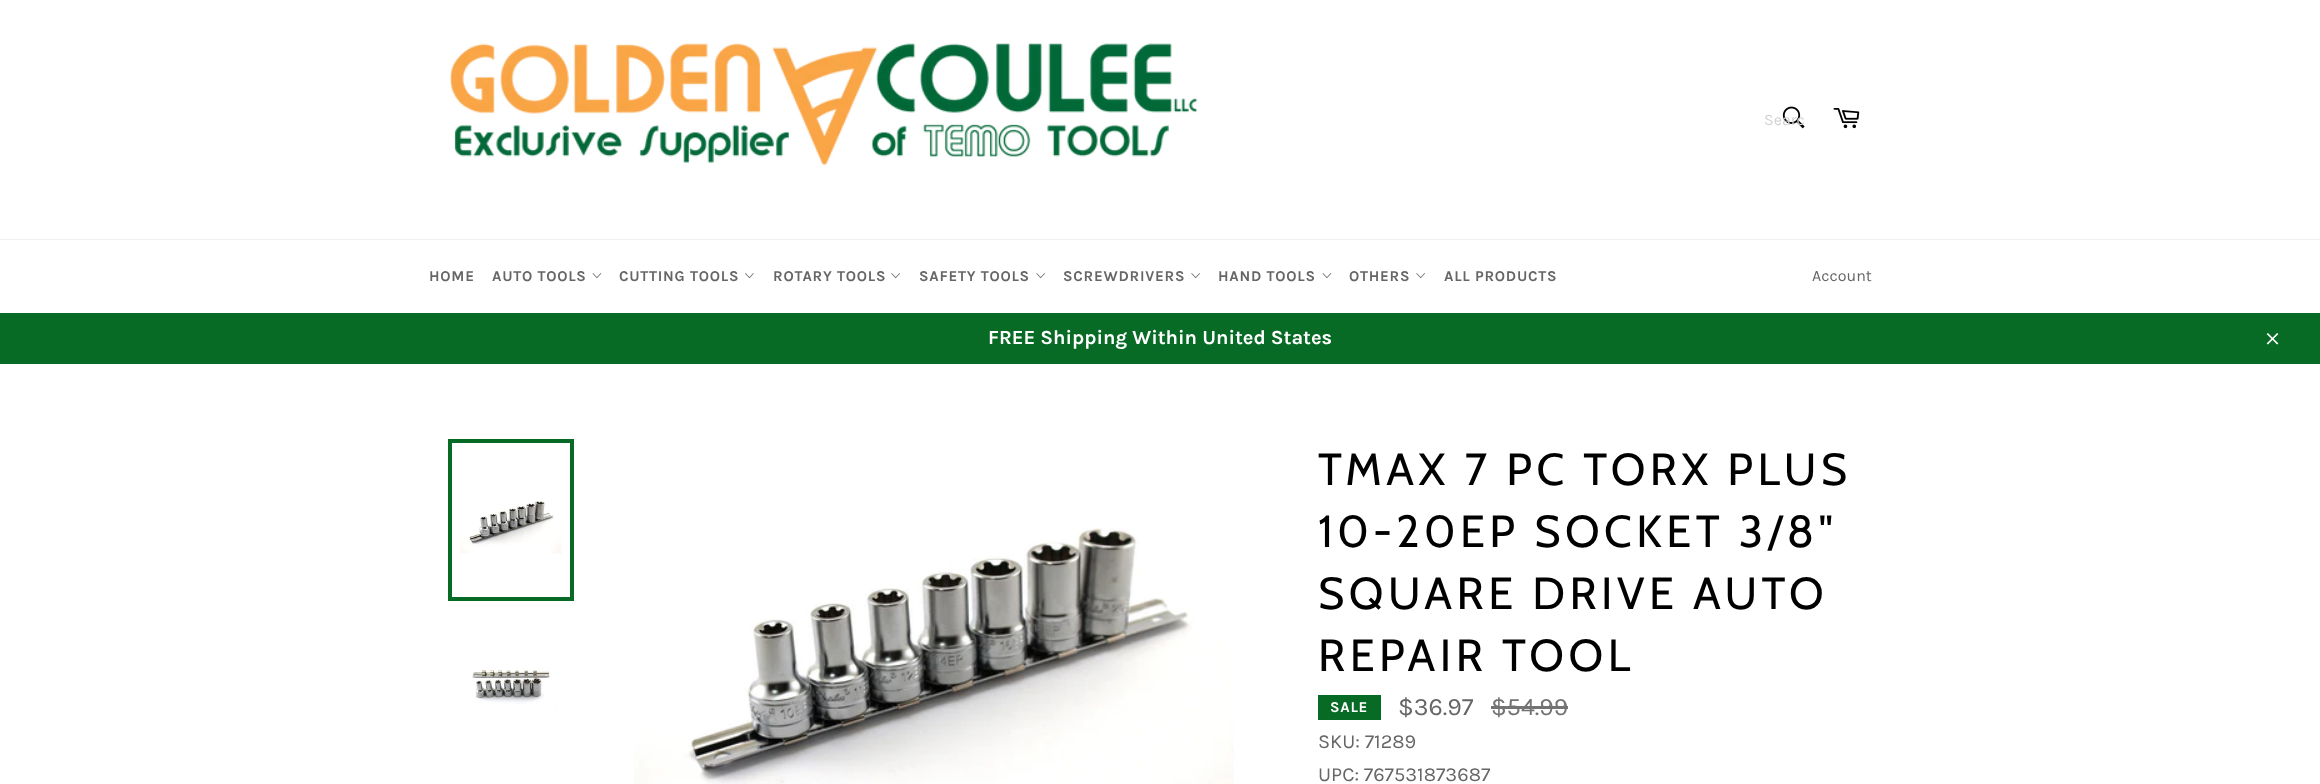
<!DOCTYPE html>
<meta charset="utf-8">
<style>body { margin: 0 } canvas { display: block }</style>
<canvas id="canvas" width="2320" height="784"></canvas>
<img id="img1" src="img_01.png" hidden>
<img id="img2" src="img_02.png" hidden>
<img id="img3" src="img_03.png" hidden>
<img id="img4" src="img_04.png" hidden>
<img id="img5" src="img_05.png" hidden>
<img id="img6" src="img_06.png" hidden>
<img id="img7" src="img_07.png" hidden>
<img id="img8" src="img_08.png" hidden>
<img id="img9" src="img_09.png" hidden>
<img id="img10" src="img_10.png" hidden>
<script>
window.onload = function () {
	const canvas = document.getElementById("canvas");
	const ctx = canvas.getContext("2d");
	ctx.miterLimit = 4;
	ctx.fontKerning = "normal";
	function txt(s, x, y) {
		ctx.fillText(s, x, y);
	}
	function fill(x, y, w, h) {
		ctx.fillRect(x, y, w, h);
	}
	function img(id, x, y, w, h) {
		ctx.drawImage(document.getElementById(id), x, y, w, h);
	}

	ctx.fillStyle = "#FFFFFF";
	fill(0, 0, 2320, 784);
	img("img1", 450, 43, 748, 123);
	img("img2", 1782, 106, 23, 23);
	img("img3", 1833, 108, 27, 21);
	ctx.fillStyle = "#F2F2F2";
	fill(0, 239, 2320, 1);
	img("img4", 592, 273, 10, 6);
	img("img5", 745, 273, 9, 6);
	img("img6", 891, 273, 9, 6);
	img("img6", 1036, 273, 9, 6);
	img("img6", 1191, 273, 9, 6);
	img("img4", 1322, 273, 10, 6);
	img("img6", 1416, 273, 9, 6);
	ctx.fillStyle = "#076A25";
	fill(0, 313, 2320, 51);
	img("img7", 2266, 333, 13, 12);
	img("img8", 460, 501, 102, 53);
	ctx.strokeStyle = "#076A25";
	ctx.lineWidth = 4;
	ctx.strokeRect(450, 441, 122, 158);
	img("img9", 472, 669, 85, 41);
	img("img10", 634, 528, 600, 256);
	fill(1318, 695, 63, 25);
	ctx.fillStyle = "#737373";
	fill(1491, 706, 77, 3);
	ctx.font = "16px Karla";
	ctx.fillStyle = "#D2D2D2";
	txt("Searc", 1764, 125);
	ctx.letterSpacing = "0.75px";
	ctx.font = "bold 15px Karla";
	ctx.fillStyle = "#666666";
	txt("HOME", 429, 281);
	txt("AUTO TOOLS", 492, 281);
	txt("CUTTING TOOLS", 619, 281);
	txt("ROTARY TOOLS", 773, 281);
	txt("SAFETY TOOLS", 919, 281);
	txt("SCREWDRIVERS", 1063, 281);
	txt("HAND TOOLS", 1218, 281);
	txt("OTHERS", 1349, 281);
	txt("ALL PRODUCTS", 1444, 281);
	ctx.letterSpacing = "0px";
	ctx.font = "16px Karla";
	txt("Account", 1812, 281);
	ctx.font = "bold 20px Karla";
	ctx.fillStyle = "#FFFFFF";
	txt("FREE Shipping Within United States", 988, 344);
	ctx.letterSpacing = "4.5px";
	ctx.font = "45px Cabin";
	ctx.fillStyle = "#000000";
	txt("TMAX 7 PC TORX PLUS", 1318, 485);
	txt("10-20EP SOCKET 3/8\"", 1318, 547);
	txt("SQUARE DRIVE AUTO", 1318, 609);
	txt("REPAIR TOOL", 1318, 671);
	ctx.letterSpacing = "0.75px";
	ctx.font = "bold 15px Karla";
	ctx.fillStyle = "#FFFFFF";
	txt("SALE", 1330, 712);
	ctx.letterSpacing = "0px";
	ctx.font = "25px Karla";
	ctx.fillStyle = "#666666";
	txt("$36.97", 1398, 715);
	ctx.fillStyle = "#737373";
	txt("$54.99", 1491, 715);
	ctx.font = "20px Karla";
	ctx.fillStyle = "#666666";
	txt("SKU: 71289", 1318, 748);
	txt("UPC: 767531873687", 1318, 781);
};
</script>
